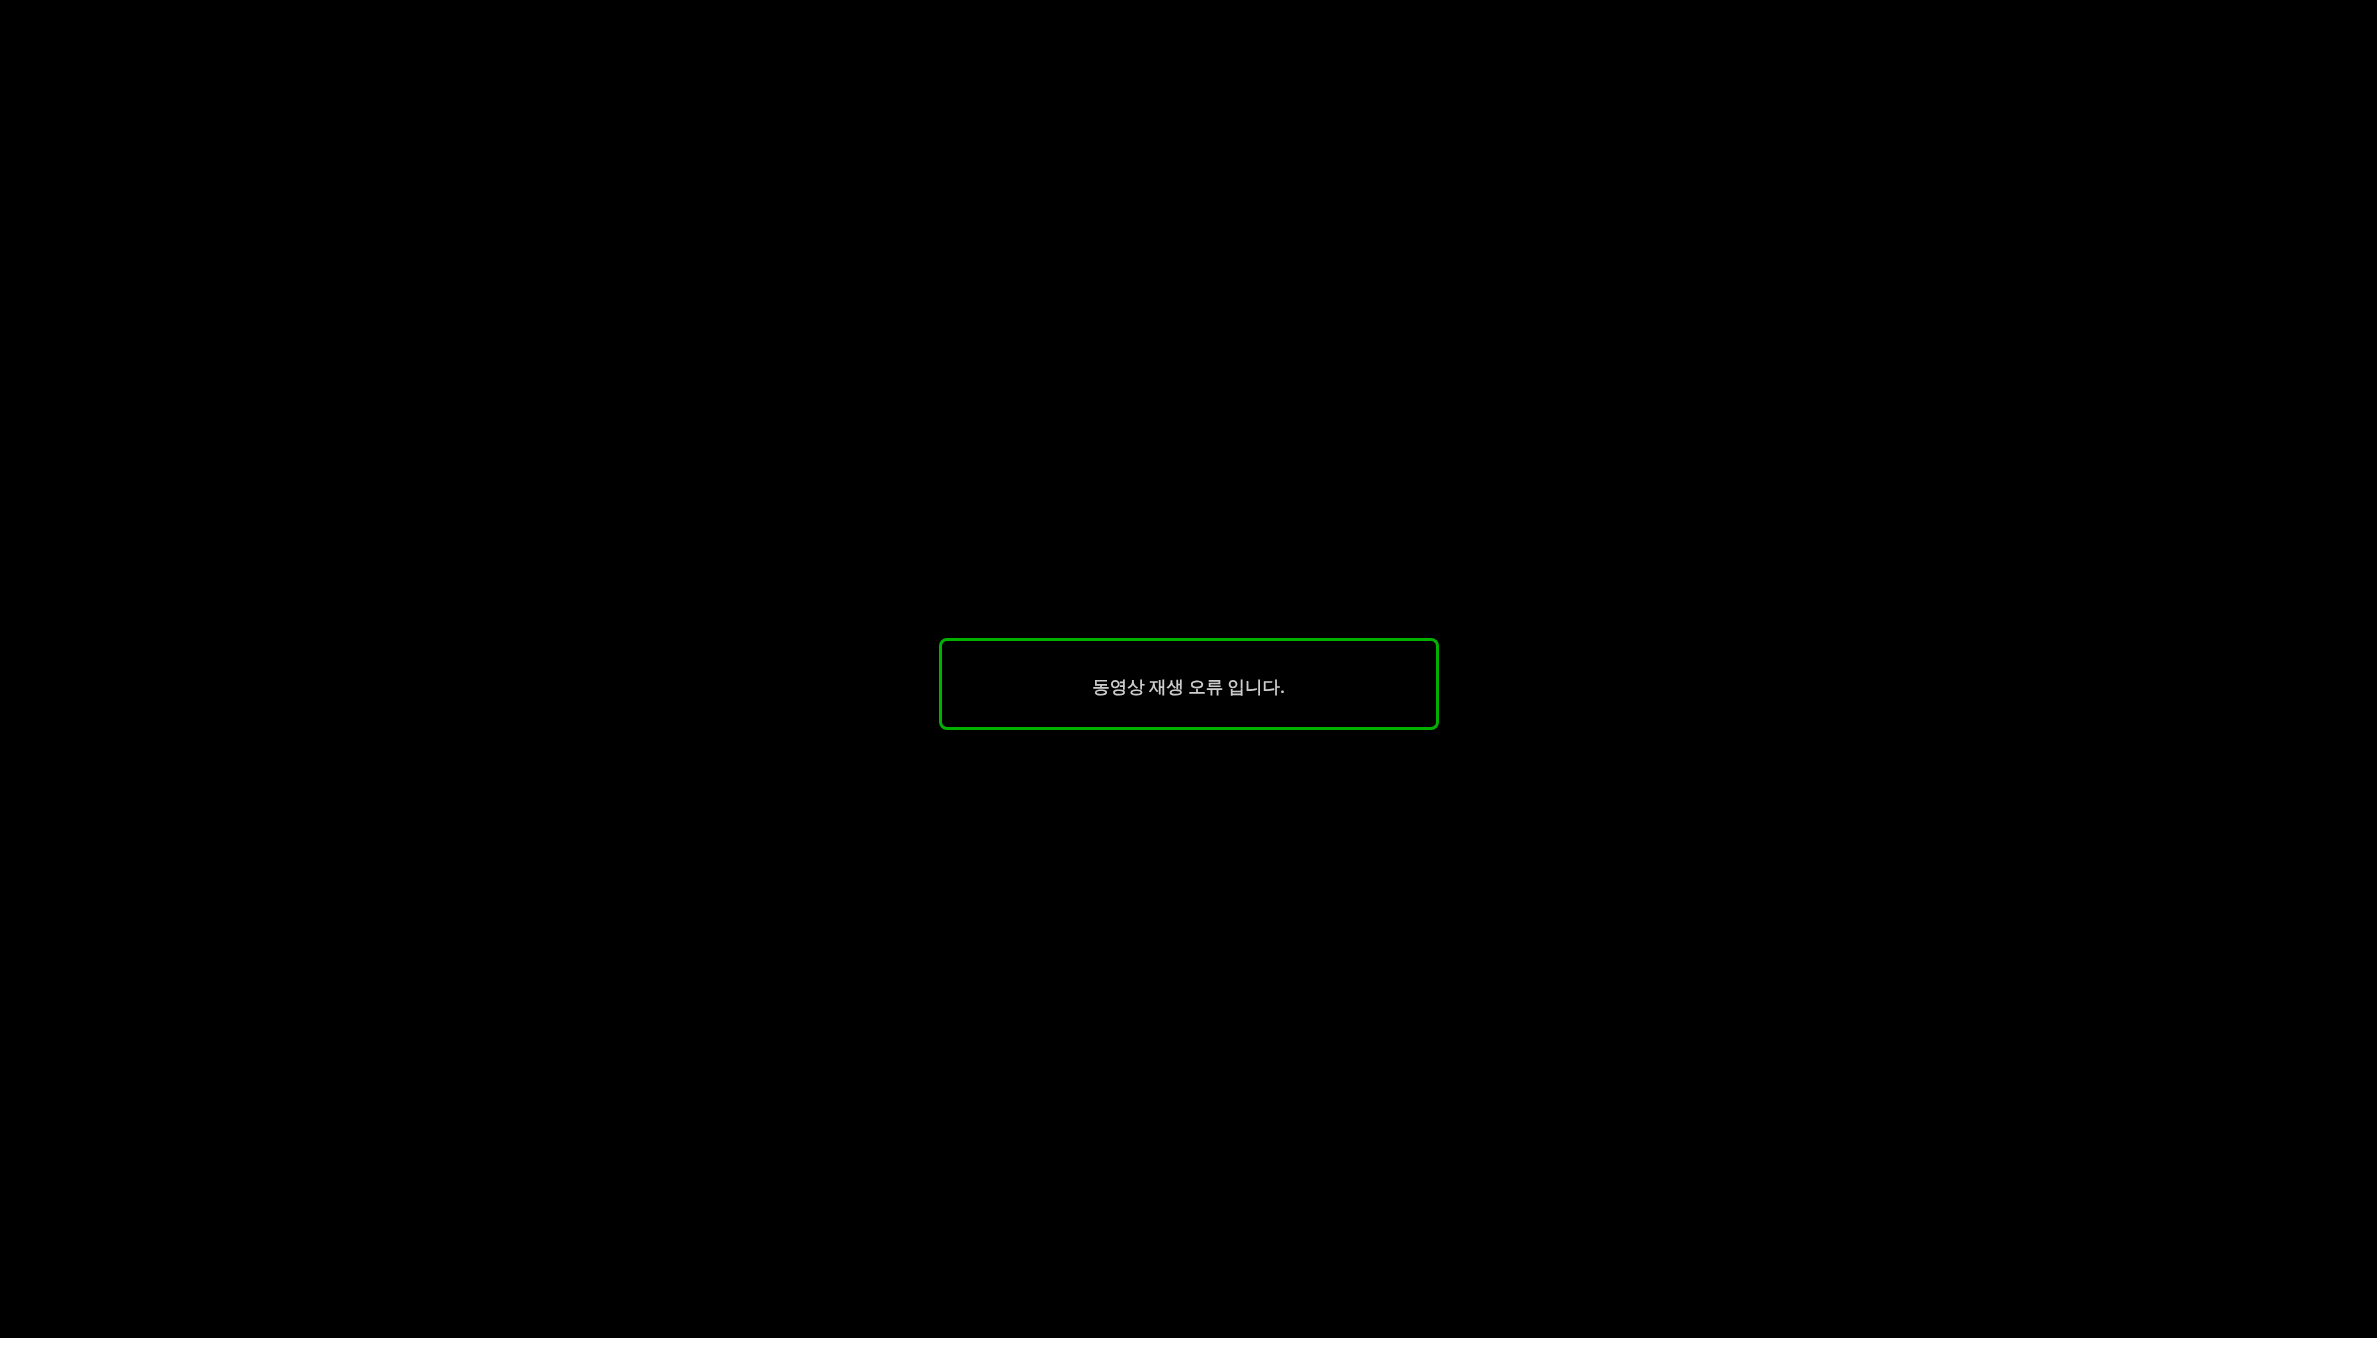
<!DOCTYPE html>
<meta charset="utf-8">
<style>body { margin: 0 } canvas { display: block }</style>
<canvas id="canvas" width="2377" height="1366"></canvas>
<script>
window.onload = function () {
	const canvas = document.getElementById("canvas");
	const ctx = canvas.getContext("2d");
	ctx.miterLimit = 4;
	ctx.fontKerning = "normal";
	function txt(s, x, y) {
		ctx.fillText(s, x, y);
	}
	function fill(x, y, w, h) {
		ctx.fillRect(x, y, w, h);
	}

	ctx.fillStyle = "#FFFFFF";
	fill(0, 0, 2377, 1366);
	ctx.fillStyle = "#000000";
	fill(0, 0, 2377, 1338);
	ctx.beginPath();
	ctx.roundRect(940.5, 639.5, 497, 89, 6.5);
	ctx.strokeStyle = "#00B100";
	ctx.lineWidth = 3;
	ctx.stroke();
	ctx.wordSpacing = "-1px";
	ctx.font = "bold 17.5px WenQuanYi Zen Hei";
	ctx.fillStyle = "#CCCCCC";
	txt("동영상 재생 오류 입니다", 1092, 693);
	ctx.wordSpacing = "0px";
	ctx.font = "bold 17.5px Roboto";
	txt(".", 1280, 693);
};
</script>
